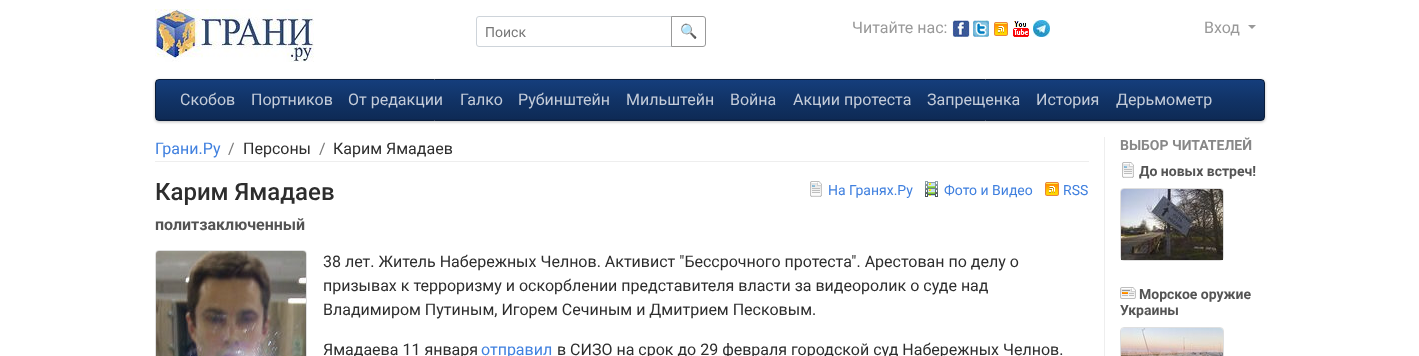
<!DOCTYPE html>
<meta charset="utf-8">
<style>body { margin: 0 } canvas { display: block }</style>
<canvas id="canvas" width="1419" height="356"></canvas>
<img id="img1" src="img_01.png" hidden>
<img id="img2" src="img_02.png" hidden>
<img id="img3" src="img_03.png" hidden>
<img id="img4" src="img_04.png" hidden>
<img id="img5" src="img_05.png" hidden>
<img id="img6" src="img_06.png" hidden>
<img id="img7" src="img_07.png" hidden>
<img id="img8" src="img_08.png" hidden>
<img id="img9" src="img_09.png" hidden>
<img id="img10" src="img_10.png" hidden>
<img id="img11" src="img_11.png" hidden>
<img id="img12" src="img_12.png" hidden>
<script>
window.onload = function () {
	const canvas = document.getElementById("canvas");
	const ctx = canvas.getContext("2d");
	ctx.miterLimit = 4;
	ctx.fontKerning = "normal";
	function txt(s, x, y) {
		ctx.fillText(s, x, y);
	}
	function fill(x, y, w, h) {
		ctx.fillRect(x, y, w, h);
	}
	function img(id, x, y, w, h) {
		ctx.drawImage(document.getElementById(id), x, y, w, h);
	}
	let gradient;

	ctx.fillStyle = "#FFFFFF";
	fill(0, 0, 1419, 356);
	img("img1", 155, 9, 159, 53);
	ctx.beginPath();
	ctx.roundRect(476.5, 16.5, 195, 30, [2.5, 0, 0, 2.5]);
	ctx.strokeStyle = "#CED4DA";
	ctx.stroke();
	ctx.beginPath();
	ctx.roundRect(671.5, 16.5, 34, 30, [0, 2.5, 2.5, 0]);
	ctx.strokeStyle = "#999999";
	ctx.stroke();
	img("img2", 952, 20, 18, 17);
	img("img3", 973, 20, 16, 17);
	img("img4", 994, 22, 14, 14);
	img("img5", 1013, 21, 16, 16);
	img("img6", 1033, 20, 17, 17);
	ctx.fillStyle = "#999999";
	ctx.beginPath();
	ctx.moveTo(1248, 25);
	ctx.lineTo(1256, 25);
	ctx.lineTo(1252, 29);
	ctx.closePath();
	ctx.fill();
	ctx.fillStyle = "rgba(0, 0, 0, 0.25)";
	ctx.filter = "blur(1.5px)";
	ctx.beginPath();
	ctx.roundRect(155, 80, 1110, 42, 4);
	ctx.fill();
	ctx.filter = "none";
	ctx.save();
	ctx.beginPath();
	ctx.roundRect(155, 79, 1110, 42, 4);
	ctx.clip();
	gradient = ctx.createLinearGradient(710, 80, 710, 120);
	gradient.addColorStop(0, "#153E7C");
	gradient.addColorStop(0.5, "#113366");
	gradient.addColorStop(1, "#0E2A55");
	ctx.fillStyle = gradient;
	fill(156, 80, 1108, 40);
	ctx.restore();
	ctx.fillStyle = "#0D264D";
	ctx.beginPath();
	ctx.moveTo(156, 116);
	ctx.lineTo(156, 117);
	ctx.bezierCurveTo(156, 119, 157, 120, 159, 120);
	ctx.lineTo(1261, 120);
	ctx.bezierCurveTo(1263, 120, 1264, 119, 1264, 117);
	ctx.lineTo(1264, 116);
	ctx.bezierCurveTo(1264, 118, 1263, 119, 1261, 119);
	ctx.lineTo(159, 119);
	ctx.bezierCurveTo(157, 119, 156, 118, 156, 116);
	ctx.closePath();
	ctx.fill();
	ctx.beginPath();
	ctx.roundRect(155.5, 79.5, 1109, 41, 3.5);
	ctx.strokeStyle = "#0A1D3A";
	ctx.stroke();
	ctx.fillStyle = "#EEEEEE";
	fill(155, 161, 934, 1);
	img("img7", 810, 181, 12, 16);
	img("img8", 925, 181, 13, 16);
	img("img4", 1045, 182, 14, 14);
	ctx.beginPath();
	ctx.roundRect(155.5, 250.5, 151, 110, 3.5);
	ctx.strokeStyle = "#DFDFDF";
	ctx.stroke();
	img("img9", 156, 251, 150, 105);
	fill(1104, 137, 1, 219);
	img("img7", 1122, 162, 12, 16);
	ctx.beginPath();
	ctx.roundRect(1120.5, 188.5, 103, 72, 3.5);
	ctx.stroke();
	img("img10", 1121, 189, 102, 71);
	img("img11", 1120, 287, 16, 12);
	ctx.beginPath();
	ctx.roundRect(1120.5, 327.5, 103, 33, 3.5);
	ctx.stroke();
	img("img12", 1121, 328, 102, 28);
	ctx.font = "14px Roboto";
	ctx.fillStyle = "#777777";
	txt("Поиск", 485, 37);
	ctx.font = "14px Noto Color Emoji";
	ctx.fillStyle = "#999999";
	txt("🔍", 680, 36);
	ctx.font = "16px Roboto";
	txt("Читайте нас:", 852, 33);
	txt("Вход", 1204, 33);
	ctx.fillStyle = "#C4CCD9";
	txt("Скобов", 180, 105);
	txt("Портников", 251, 105);
	txt("От редакции", 348, 105);
	txt("Галко", 460, 105);
	txt("Рубинштейн", 518, 105);
	txt("Мильштейн", 626, 105);
	txt("Война", 730, 105);
	txt("Акции протеста", 793, 105);
	txt("Запрещенка", 927, 105);
	txt("История", 1036, 105);
	txt("Дерьмометр", 1116, 105);
	ctx.fillStyle = "#4080DF";
	txt("Грани.Ру", 155, 154);
	ctx.fillStyle = "#777777";
	txt("/", 228, 154);
	ctx.fillStyle = "#2D2D2D";
	txt("Персоны", 243, 154);
	ctx.fillStyle = "#777777";
	txt("/", 319, 154);
	ctx.fillStyle = "#2D2D2D";
	txt("Карим Ямадаев", 333, 154);
	ctx.font = "500 24px Roboto";
	txt("Карим Ямадаев", 155, 200);
	ctx.font = "14px Roboto";
	ctx.fillStyle = "#4080DF";
	txt("На Гранях.Ру", 828, 195);
	txt("Фото и Видео", 944, 195);
	txt("RSS", 1063, 195);
	ctx.font = "bold 16px Roboto";
	ctx.fillStyle = "#545454";
	txt("политзаключенный", 155, 230);
	ctx.font = "16px Roboto";
	ctx.fillStyle = "#2D2D2D";
	txt("38 лет. Житель Набережных Челнов. Активист \"Бессрочного протеста\". Арестован по делу о", 323, 267);
	txt("призывах к терроризму и оскорблении представителя власти за видеоролик о суде над", 323, 291);
	txt("Владимиром Путиным, Игорем Сечиным и Дмитрием Песковым.", 323, 315);
	txt("Ямадаева 11 января", 323, 355);
	ctx.fillStyle = "#4080DF";
	txt("отправил", 481, 355);
	ctx.fillStyle = "#2D2D2D";
	txt("в СИЗО на срок до 29 февраля городской суд Набережных Челнов.", 557, 355);
	ctx.font = "bold 14px Roboto";
	ctx.fillStyle = "#888888";
	txt("ВЫБОР ЧИТАТЕЛЕЙ", 1120, 150);
	ctx.fillStyle = "#545454";
	txt("До новых встреч!", 1139, 176);
	txt("Морское оружие", 1139, 299);
	txt("Украины", 1120, 315);
};
</script>
